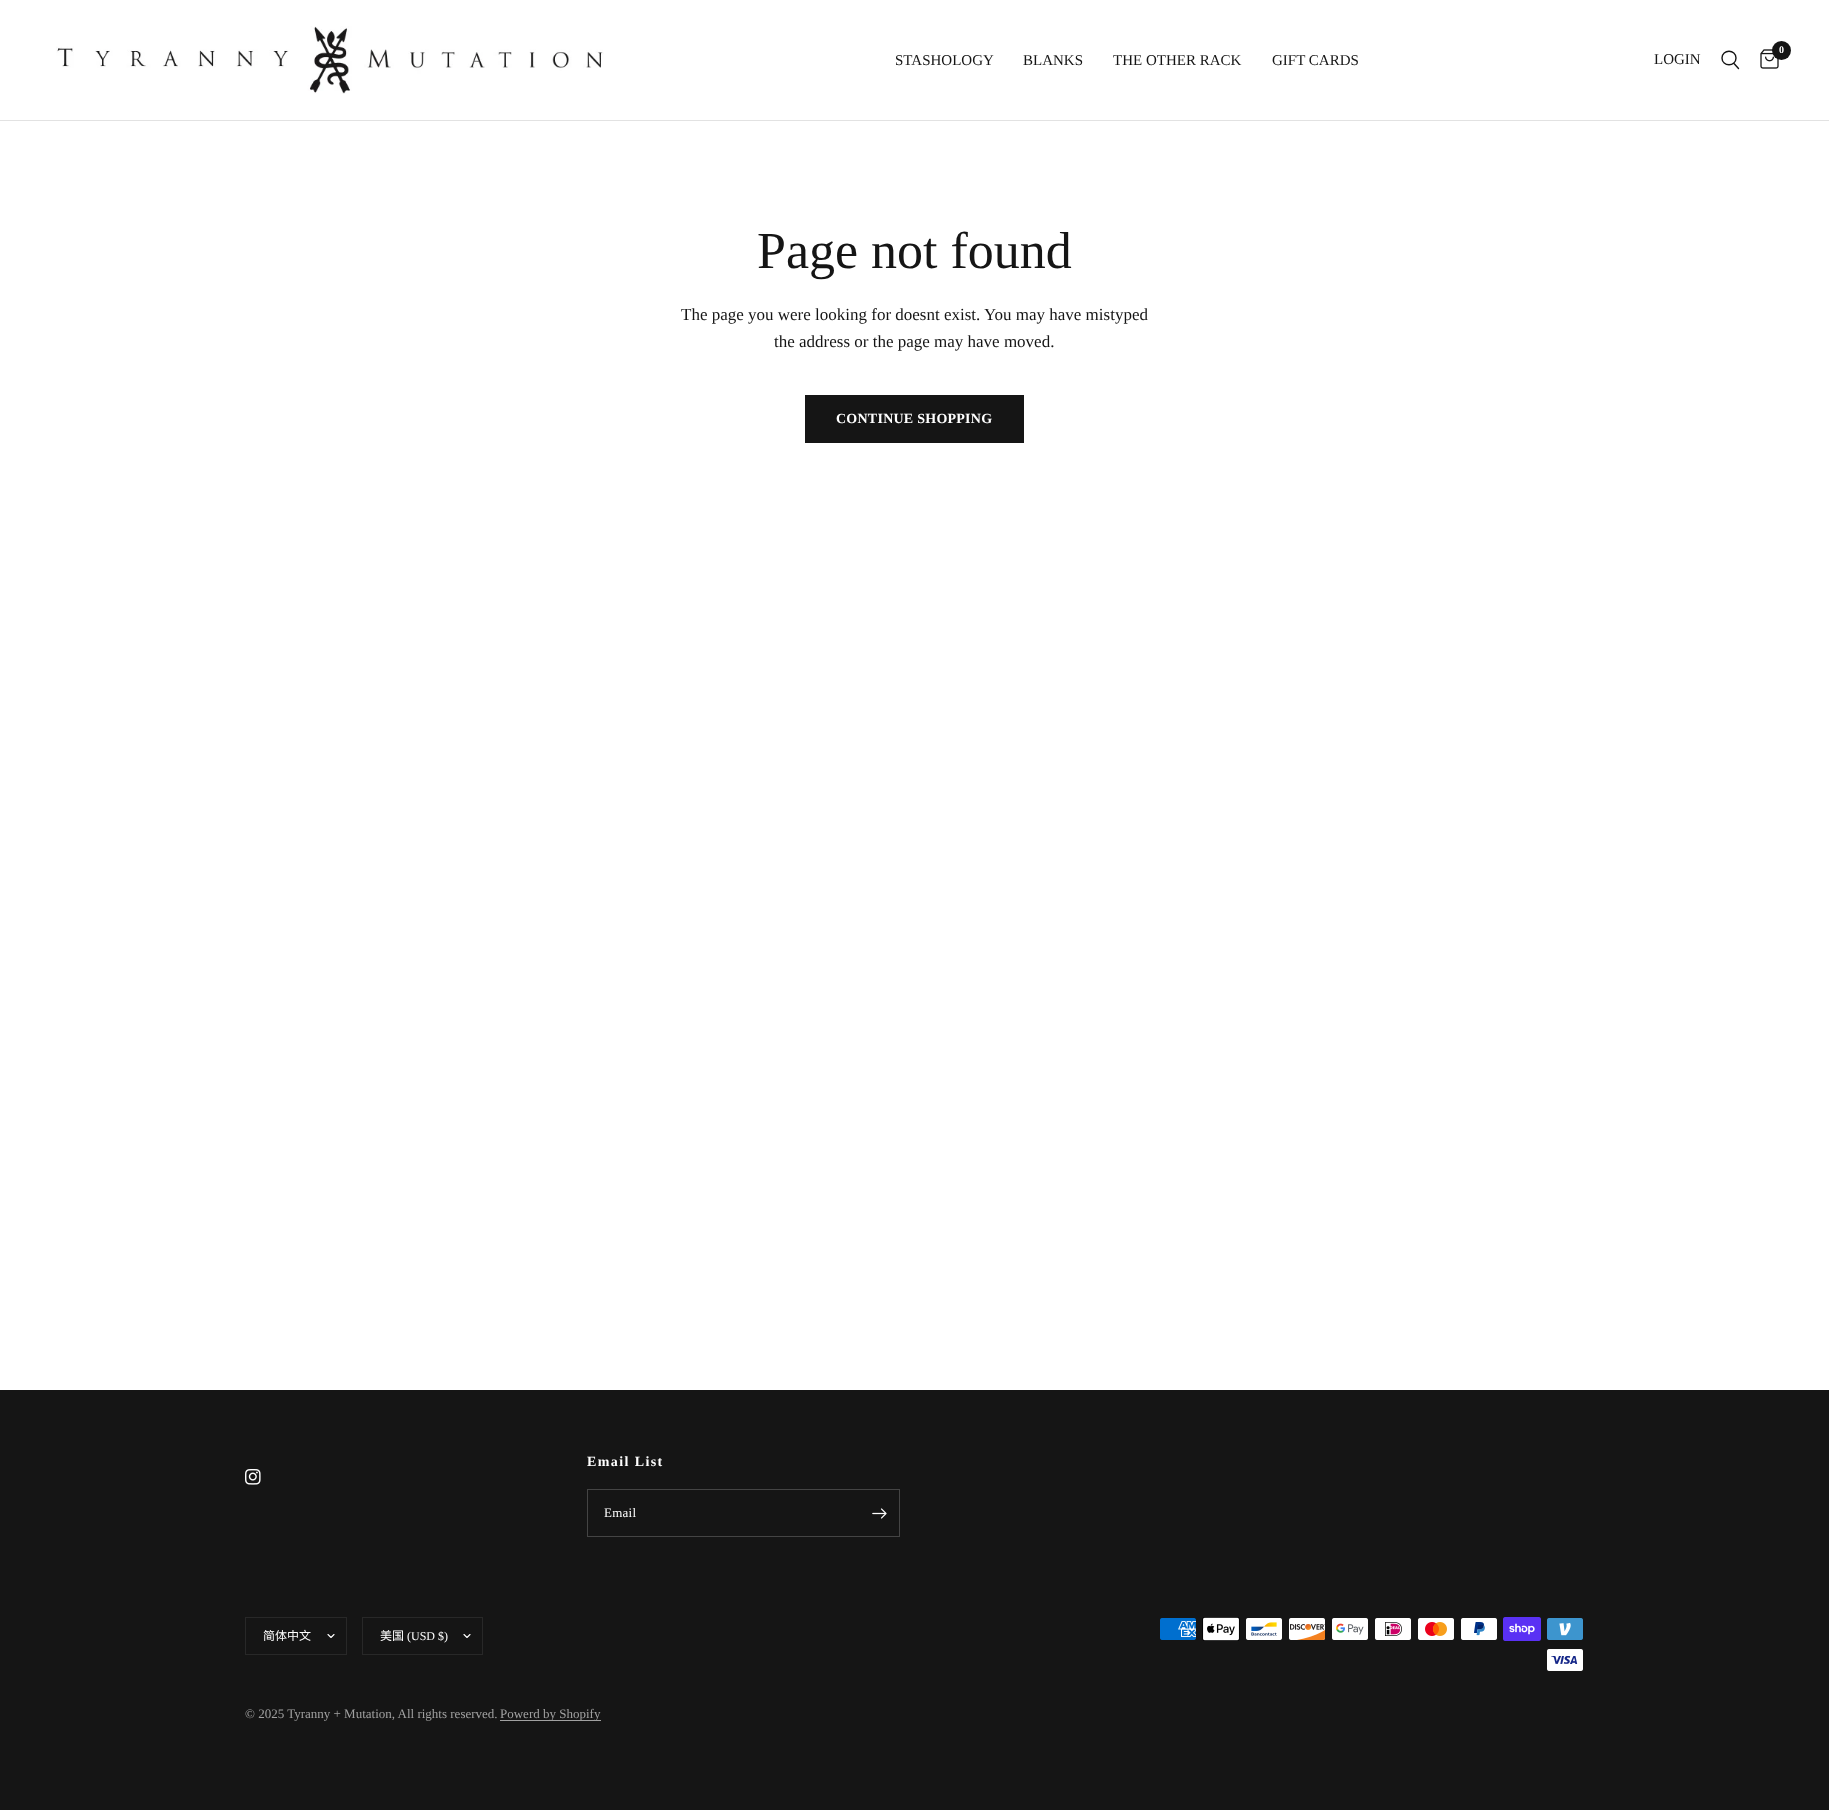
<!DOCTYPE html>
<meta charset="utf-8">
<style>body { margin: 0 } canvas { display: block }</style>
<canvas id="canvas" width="1829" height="1810"></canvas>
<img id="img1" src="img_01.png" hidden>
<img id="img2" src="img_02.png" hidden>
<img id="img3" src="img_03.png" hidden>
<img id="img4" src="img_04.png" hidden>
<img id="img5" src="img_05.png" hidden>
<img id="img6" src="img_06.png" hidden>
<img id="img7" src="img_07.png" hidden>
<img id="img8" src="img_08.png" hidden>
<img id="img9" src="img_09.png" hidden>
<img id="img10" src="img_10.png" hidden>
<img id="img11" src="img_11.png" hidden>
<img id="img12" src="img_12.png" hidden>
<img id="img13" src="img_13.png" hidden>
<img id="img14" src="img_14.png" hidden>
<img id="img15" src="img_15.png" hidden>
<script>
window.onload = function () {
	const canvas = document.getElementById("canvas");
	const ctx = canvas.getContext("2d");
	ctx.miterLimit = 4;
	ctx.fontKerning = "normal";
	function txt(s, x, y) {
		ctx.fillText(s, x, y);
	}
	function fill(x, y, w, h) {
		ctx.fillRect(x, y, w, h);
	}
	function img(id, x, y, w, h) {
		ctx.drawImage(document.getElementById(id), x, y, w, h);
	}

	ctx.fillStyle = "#FFFFFF";
	fill(0, 0, 1829, 1810);
	ctx.fillStyle = "#E2E2E2";
	fill(0, 120, 1829, 1);
	img("img1", 56, 26, 548, 68);
	ctx.beginPath();
	ctx.moveTo(1734, 63.5);
	ctx.lineTo(1738.5, 68.5);
	ctx.moveTo(1736, 58);
	ctx.bezierCurveTo(1736, 67, 1722, 67, 1722, 58);
	ctx.bezierCurveTo(1722, 49, 1736, 49, 1736, 58);
	ctx.closePath();
	ctx.strokeStyle = "#151515";
	ctx.lineWidth = 1.4;
	ctx.lineCap = "round";
	ctx.lineJoin = "round";
	ctx.stroke();
	img("img2", 1760, 49, 19, 20);
	ctx.fillStyle = "#151515";
	ctx.beginPath();
	ctx.arc(1781.5, 50.5, 9.5, 0, Math.PI * 2);
	ctx.fill();
	fill(805, 395, 219, 48);
	fill(0, 1390, 1829, 420);
	img("img3", 245, 1469, 16, 16);
	ctx.strokeStyle = "#444444";
	ctx.lineWidth = 1;
	ctx.lineJoin = "miter";
	ctx.strokeRect(587.5, 1489.5, 312, 47);
	img("img4", 872, 1508, 15, 11);
	ctx.strokeStyle = "#282828";
	ctx.strokeRect(245.5, 1617.5, 101, 37);
	ctx.beginPath();
	ctx.moveTo(334, 1634.5);
	ctx.lineTo(331, 1637.5);
	ctx.lineTo(328, 1634.5);
	ctx.strokeStyle = "#FFFFFF";
	ctx.lineWidth = 1.1;
	ctx.lineJoin = "round";
	ctx.stroke();
	ctx.strokeStyle = "#282828";
	ctx.lineWidth = 1;
	ctx.lineJoin = "miter";
	ctx.strokeRect(362.5, 1617.5, 120, 37);
	ctx.beginPath();
	ctx.moveTo(470, 1634.5);
	ctx.lineTo(467, 1637.5);
	ctx.lineTo(464, 1634.5);
	ctx.strokeStyle = "#FFFFFF";
	ctx.lineWidth = 1.1;
	ctx.lineJoin = "round";
	ctx.stroke();
	img("img5", 1160, 1618, 36, 22);
	img("img6", 1202, 1617, 38, 24);
	img("img7", 1246, 1618, 36, 22);
	img("img8", 1289, 1618, 36, 22);
	img("img9", 1332, 1618, 36, 22);
	img("img10", 1375, 1618, 36, 22);
	img("img11", 1418, 1618, 36, 22);
	img("img12", 1461, 1618, 36, 22);
	img("img13", 1503, 1617, 38, 24);
	img("img14", 1547, 1618, 36, 22);
	img("img15", 1547, 1649, 36, 22);
	ctx.fillStyle = "#A1A1A1";
	fill(500, 1720, 101, 1);
	ctx.font = "15px Liberation Serif";
	ctx.fillStyle = "#151515";
	txt("STASHOLOGY", 895, 65);
	txt("BLANKS", 1023, 65);
	txt("THE OTHER RACK", 1113, 65);
	txt("GIFT CARDS", 1272, 65);
	txt("LOGIN", 1654, 64);
	ctx.font = "bold 10px Liberation Serif";
	ctx.fillStyle = "#FFFFFF";
	txt("0", 1779, 53);
	ctx.font = "52px Liberation Serif";
	ctx.fillStyle = "#151515";
	txt("Page not found", 757, 268);
	ctx.font = "17px Liberation Serif";
	txt("The page you were looking for doesnt exist. You may have mistyped", 681, 320);
	txt("the address or the page may have moved.", 774, 347);
	ctx.letterSpacing = "0.25px";
	ctx.font = "bold 14px Liberation Serif";
	ctx.fillStyle = "#FFFFFF";
	txt("CONTINUE SHOPPING", 836, 423);
	ctx.letterSpacing = "1.4px";
	txt("Email List", 587, 1466);
	ctx.letterSpacing = "0.25px";
	ctx.font = "13px Liberation Serif";
	txt("Email", 604, 1517);
	ctx.letterSpacing = "0px";
	ctx.font = "12px Noto Sans CJK SC";
	txt("简体中文", 263, 1640);
	txt("美国", 380, 1640);
	ctx.font = "12px Liberation Serif";
	txt("(USD $)", 407, 1640);
	ctx.font = "13px Liberation Serif";
	ctx.fillStyle = "#A1A1A1";
	txt("© 2025 Tyranny + Mutation, All rights reserved.", 245, 1718);
	txt("Powerd by Shopify", 500, 1718);
};
</script>
